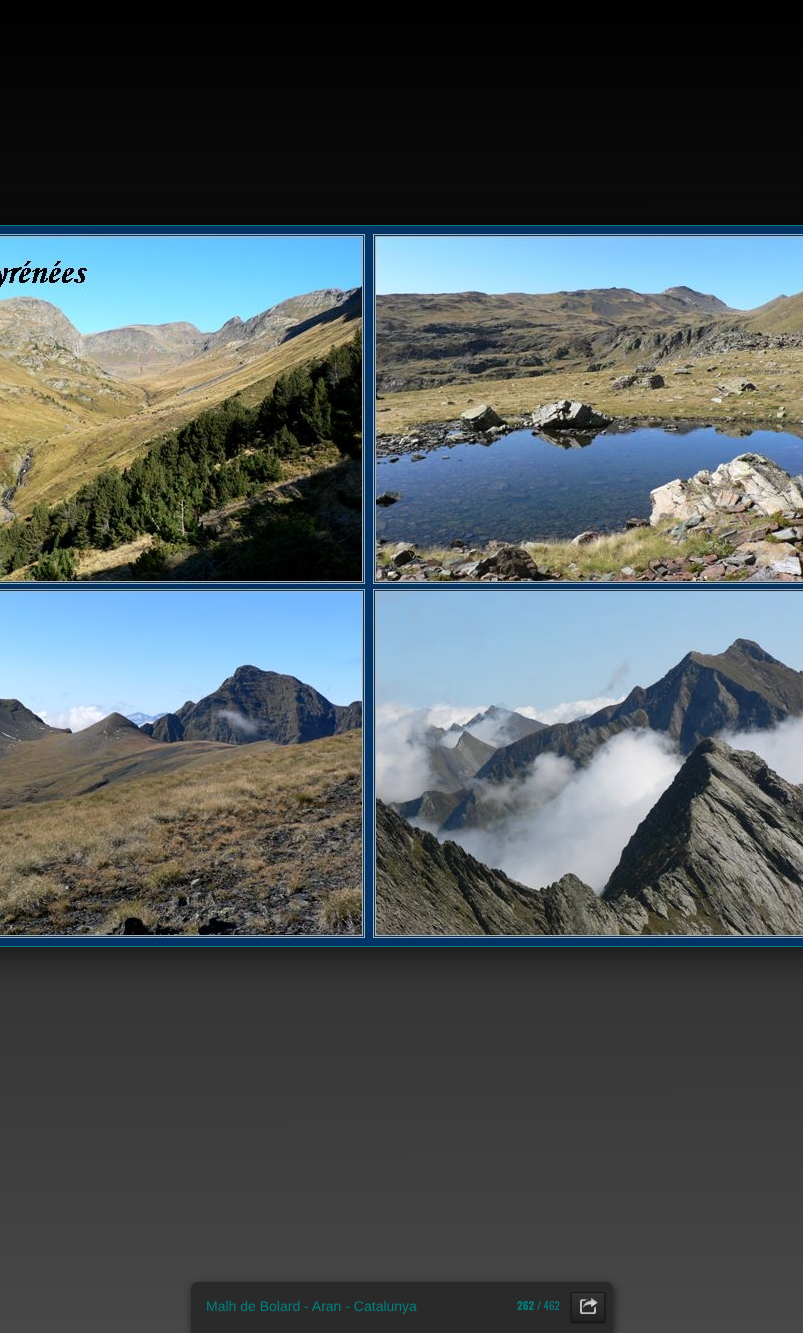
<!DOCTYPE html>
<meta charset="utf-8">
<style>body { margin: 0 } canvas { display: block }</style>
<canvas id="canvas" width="803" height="1333"></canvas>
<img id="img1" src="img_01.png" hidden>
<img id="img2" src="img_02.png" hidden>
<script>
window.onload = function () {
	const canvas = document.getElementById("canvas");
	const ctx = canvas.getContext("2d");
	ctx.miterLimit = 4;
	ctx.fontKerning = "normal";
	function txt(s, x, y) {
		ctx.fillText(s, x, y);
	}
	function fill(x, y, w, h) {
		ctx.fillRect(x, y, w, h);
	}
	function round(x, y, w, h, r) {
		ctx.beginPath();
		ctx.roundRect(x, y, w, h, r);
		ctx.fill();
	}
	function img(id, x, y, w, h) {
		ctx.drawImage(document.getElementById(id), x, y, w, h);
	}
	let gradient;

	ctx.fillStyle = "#FFFFFF";
	fill(0, 0, 803, 1333);
	gradient = ctx.createLinearGradient(401, 0, 402, 1333);
	gradient.addColorStop(0, "#000000");
	gradient.addColorStop(1, "#484848");
	ctx.fillStyle = gradient;
	fill(0, 0, 803, 1333);
	ctx.fillStyle = "rgba(0, 0, 0, 0.6)";
	ctx.filter = "blur(16px)";
	ctx.beginPath();
	ctx.rect(-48, 231, 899, 722);
	ctx.fill();
	ctx.filter = "none";
	ctx.fillStyle = "#008080";
	fill(0, 225, 803, 722);
	img("img1", 0, 226, 803, 720);
	ctx.save();
	ctx.beginPath();
	ctx.moveTo(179, 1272);
	ctx.lineTo(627, 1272);
	ctx.lineTo(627, 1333);
	ctx.lineTo(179, 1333);
	ctx.closePath();
	ctx.moveTo(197, 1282);
	ctx.lineTo(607, 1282);
	ctx.bezierCurveTo(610.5, 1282, 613, 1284.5, 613, 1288);
	ctx.lineTo(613, 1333);
	ctx.lineTo(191, 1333);
	ctx.lineTo(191, 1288);
	ctx.bezierCurveTo(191, 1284.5, 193.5, 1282, 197, 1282);
	ctx.closePath();
	ctx.clip("evenodd");
	ctx.fillStyle = "rgba(0, 0, 0, 0.6)";
	ctx.filter = "blur(4px)";
	ctx.beginPath();
	ctx.roundRect(192, 1285, 422, 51, 6);
	ctx.fill();
	ctx.filter = "none";
	ctx.restore();
	ctx.fillStyle = "rgba(0, 0, 0, 0.4)";
	ctx.beginPath();
	ctx.roundRect(191, 1282, 422, 51, [6, 6, 0, 0]);
	ctx.fill();
	ctx.fillStyle = "rgba(0, 0, 0, 0.6)";
	ctx.filter = "blur(1px)";
	ctx.beginPath();
	ctx.roundRect(571, 1293, 34, 30, 2);
	ctx.fill();
	ctx.filter = "none";
	gradient = ctx.createLinearGradient(588, 1293, 588, 1321);
	gradient.addColorStop(0, "#333333");
	gradient.addColorStop(1, "#222222");
	ctx.fillStyle = gradient;
	round(572, 1293, 32, 28, 1);
	ctx.beginPath();
	ctx.roundRect(571.5, 1292.5, 33, 29, 1.5);
	ctx.strokeStyle = "#181818";
	ctx.stroke();
	img("img2", 580, 1297, 18, 17);
	ctx.font = "14px Liberation Sans";
	ctx.fillStyle = "#008080";
	txt("Malh de Bolard - Aran - Catalunya", 206, 1311);
	ctx.font = "bold 11px Oswald";
	txt("262", 517, 1310);
	ctx.font = "11px Oswald";
	txt("/ 462", 537, 1310);
};
</script>
